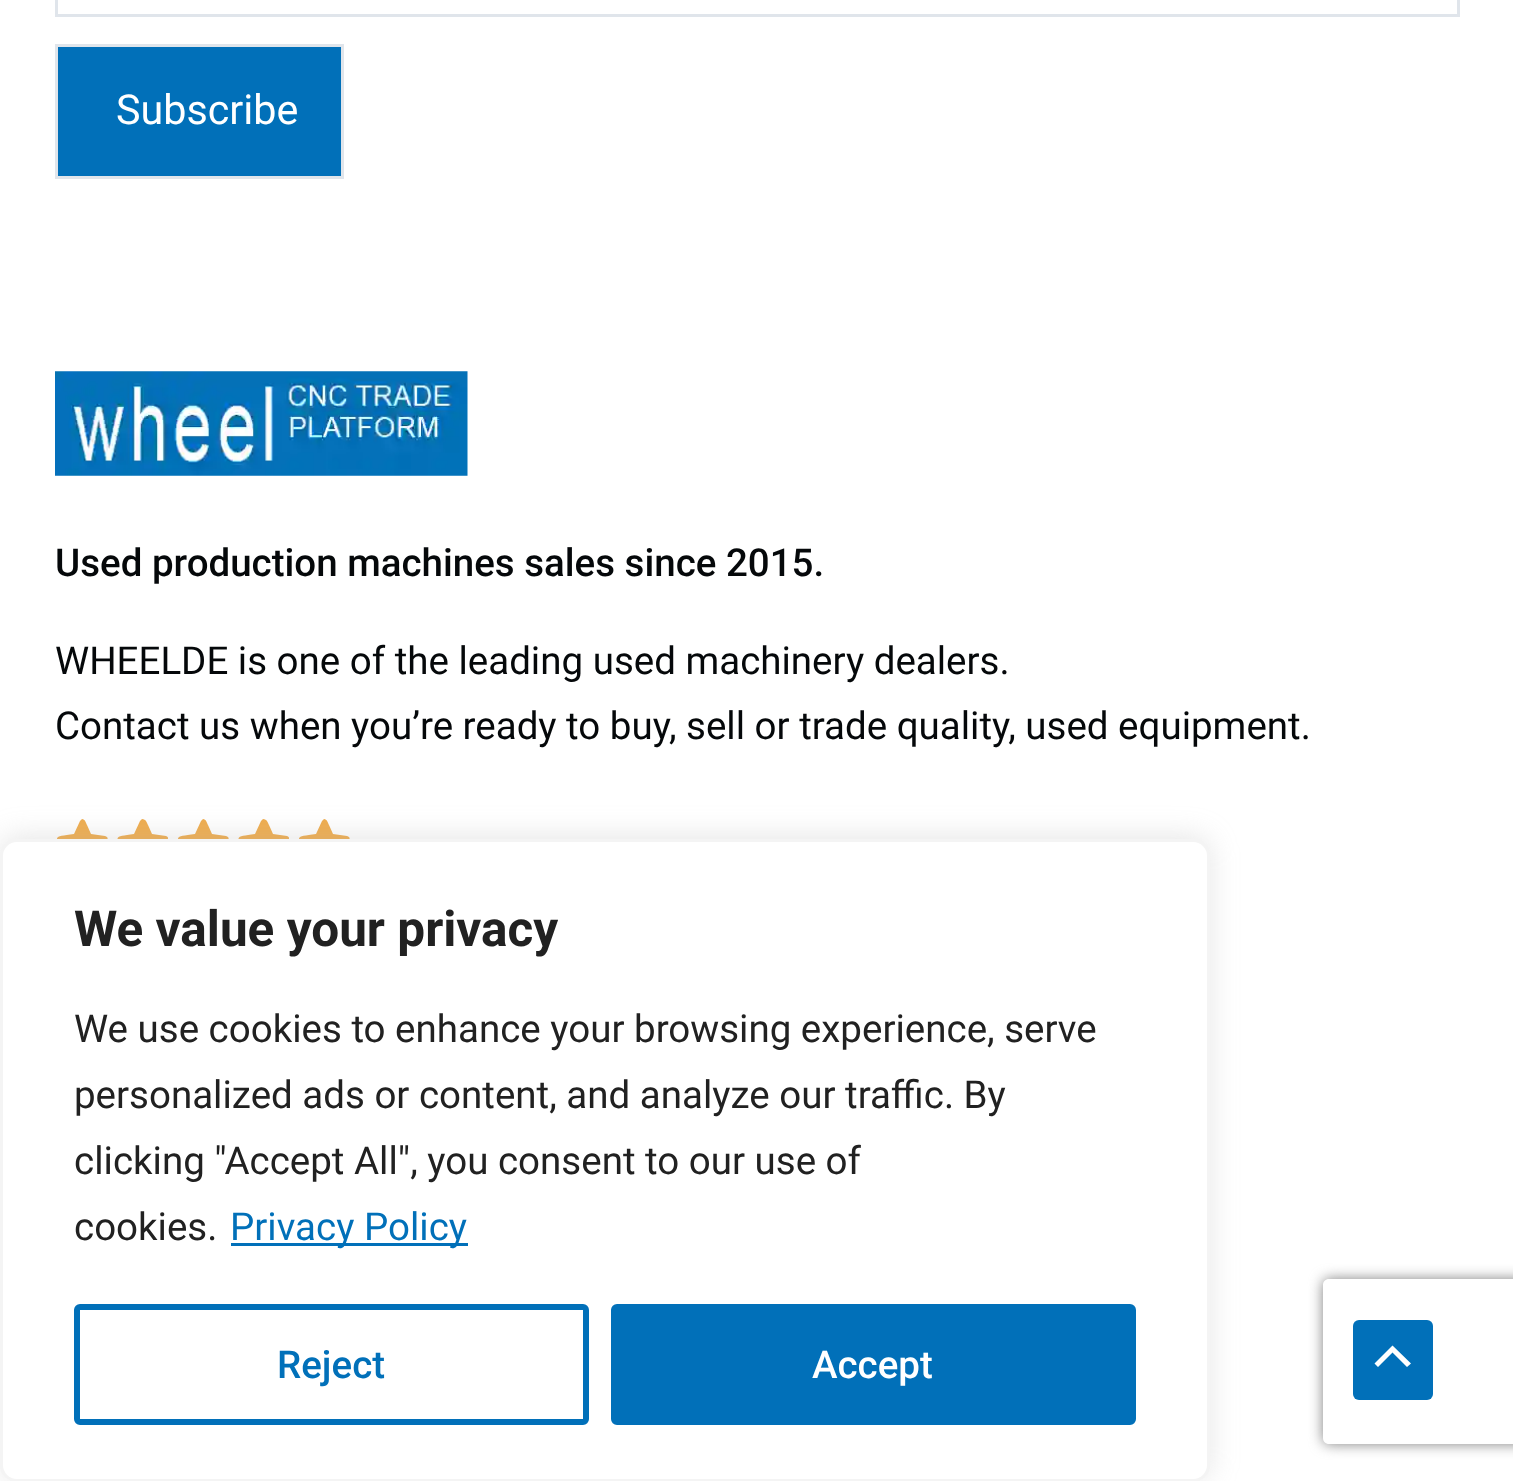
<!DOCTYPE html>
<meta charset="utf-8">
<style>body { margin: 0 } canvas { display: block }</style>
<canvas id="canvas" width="1513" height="1481"></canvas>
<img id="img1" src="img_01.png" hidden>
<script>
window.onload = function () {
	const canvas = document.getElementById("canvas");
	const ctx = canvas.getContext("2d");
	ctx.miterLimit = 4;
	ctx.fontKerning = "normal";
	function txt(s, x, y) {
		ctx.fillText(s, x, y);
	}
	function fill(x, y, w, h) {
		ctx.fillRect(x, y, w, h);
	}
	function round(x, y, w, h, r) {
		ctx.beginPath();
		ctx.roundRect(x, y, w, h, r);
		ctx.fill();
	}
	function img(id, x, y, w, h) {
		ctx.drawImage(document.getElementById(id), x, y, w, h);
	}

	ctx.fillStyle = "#FFFFFF";
	fill(0, 0, 1513, 1481);
	ctx.strokeStyle = "#E0E5EB";
	ctx.lineWidth = 3;
	ctx.strokeRect(56.5, -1.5, 1402, 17);
	ctx.fillStyle = "#0170B9";
	ctx.beginPath();
	ctx.rect(56.5, 45.5, 286, 132);
	ctx.fill();
	ctx.stroke();
	img("img1", 55, 371, 413, 105);
	ctx.fillStyle = "#F0AD4E";
	ctx.beginPath();
	ctx.moveTo(80, 821);
	ctx.lineTo(74, 834);
	ctx.bezierCurveTo(52, 837, 53, 836, 68, 852);
	ctx.bezierCurveTo(65, 873, 63, 873, 82, 863);
	ctx.bezierCurveTo(102, 873, 100, 873, 97, 852);
	ctx.lineTo(102, 847);
	ctx.bezierCurveTo(103, 845, 112, 838, 105, 836);
	ctx.lineTo(91, 834);
	ctx.lineTo(87, 825);
	ctx.bezierCurveTo(86, 823, 85, 819, 82, 819);
	ctx.closePath();
	ctx.fill();
	ctx.beginPath();
	ctx.moveTo(140, 821);
	ctx.lineTo(134, 834);
	ctx.bezierCurveTo(113, 837, 113, 836, 129, 852);
	ctx.bezierCurveTo(125, 873, 124, 873, 143, 863);
	ctx.bezierCurveTo(163, 873, 161, 873, 157, 852);
	ctx.lineTo(162, 847);
	ctx.bezierCurveTo(163, 845, 172, 838, 166, 836);
	ctx.lineTo(152, 834);
	ctx.lineTo(148, 825);
	ctx.bezierCurveTo(147, 823, 146, 819, 142, 819);
	ctx.closePath();
	ctx.fill();
	ctx.beginPath();
	ctx.moveTo(201, 821);
	ctx.lineTo(195, 834);
	ctx.bezierCurveTo(173, 837, 174, 836, 189, 852);
	ctx.bezierCurveTo(186, 873, 184, 873, 204, 863);
	ctx.bezierCurveTo(223, 873, 221, 873, 218, 852);
	ctx.lineTo(223, 847);
	ctx.bezierCurveTo(224, 845, 233, 838, 226, 836);
	ctx.lineTo(212, 834);
	ctx.lineTo(208, 825);
	ctx.bezierCurveTo(207, 823, 206, 819, 203, 819);
	ctx.closePath();
	ctx.fill();
	ctx.beginPath();
	ctx.moveTo(261, 821);
	ctx.lineTo(255, 834);
	ctx.bezierCurveTo(234, 837, 234, 836, 250, 852);
	ctx.bezierCurveTo(246, 873, 245, 873, 264, 863);
	ctx.bezierCurveTo(284, 873, 282, 873, 278, 852);
	ctx.lineTo(283, 847);
	ctx.bezierCurveTo(284, 845, 293, 838, 287, 836);
	ctx.lineTo(273, 834);
	ctx.lineTo(269, 825);
	ctx.bezierCurveTo(268, 823, 267, 819, 263, 819);
	ctx.closePath();
	ctx.fill();
	ctx.beginPath();
	ctx.moveTo(322, 821);
	ctx.lineTo(316, 834);
	ctx.bezierCurveTo(294, 837, 295, 836, 310, 852);
	ctx.bezierCurveTo(307, 873, 305, 873, 324, 863);
	ctx.bezierCurveTo(344, 873, 342, 873, 339, 852);
	ctx.lineTo(344, 847);
	ctx.bezierCurveTo(345, 845, 354, 838, 347, 836);
	ctx.lineTo(333, 834);
	ctx.lineTo(329, 825);
	ctx.bezierCurveTo(328, 823, 327, 819, 324, 819);
	ctx.closePath();
	ctx.fill();
	ctx.fillStyle = "rgba(172, 171, 171, 0.3)";
	ctx.filter = "blur(14px)";
	ctx.beginPath();
	ctx.roundRect(0, 836, 1210, 644, 17);
	ctx.fill();
	ctx.filter = "none";
	ctx.fillStyle = "#FFFFFF";
	ctx.beginPath();
	ctx.roundRect(1.5, 840.5, 1207, 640, 15.5);
	ctx.fill();
	ctx.strokeStyle = "#F4F4F4";
	ctx.stroke();
	ctx.fillStyle = "#0170B9";
	fill(231, 1243, 237, 3);
	ctx.beginPath();
	ctx.roundRect(77, 1307, 509, 115, 3);
	ctx.strokeStyle = "#0170B9";
	ctx.lineWidth = 6;
	ctx.stroke();
	ctx.beginPath();
	ctx.roundRect(614, 1307, 519, 115, 3);
	ctx.fill();
	ctx.stroke();
	ctx.save();
	ctx.beginPath();
	ctx.moveTo(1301, 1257);
	ctx.lineTo(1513, 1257);
	ctx.lineTo(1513, 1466);
	ctx.lineTo(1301, 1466);
	ctx.closePath();
	ctx.moveTo(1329, 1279);
	ctx.lineTo(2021, 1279);
	ctx.bezierCurveTo(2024.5, 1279, 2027, 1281.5, 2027, 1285);
	ctx.lineTo(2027, 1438);
	ctx.bezierCurveTo(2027, 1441.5, 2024.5, 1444, 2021, 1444);
	ctx.lineTo(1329, 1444);
	ctx.bezierCurveTo(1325.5, 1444, 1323, 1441.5, 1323, 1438);
	ctx.lineTo(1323, 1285);
	ctx.bezierCurveTo(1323, 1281.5, 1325.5, 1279, 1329, 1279);
	ctx.closePath();
	ctx.clip("evenodd");
	ctx.fillStyle = "#808080";
	ctx.filter = "blur(7px)";
	ctx.beginPath();
	ctx.roundRect(1323, 1279, 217, 165, 6);
	ctx.fill();
	ctx.filter = "none";
	ctx.restore();
	round(1353, 1320, 80, 80, 6);
	ctx.fillStyle = "#FFFFFF";
	ctx.beginPath();
	ctx.moveTo(1411, 1363.5);
	ctx.lineTo(1392.5, 1345.5);
	ctx.lineTo(1374.5, 1363.5);
	ctx.lineTo(1378, 1367);
	ctx.lineTo(1392.5, 1352.5);
	ctx.lineTo(1407, 1367);
	ctx.closePath();
	ctx.fill();
	ctx.font = "41.25px Roboto";
	txt("Subscribe", 116, 124);
	ctx.font = "500 38.5px Roboto";
	ctx.fillStyle = "#05080A";
	txt("Used production machines sales since 2015.", 55, 576);
	ctx.font = "38.5px Roboto";
	txt("WHEELDE is one of the leading used machinery dealers.", 55, 674);
	txt("Contact us when you’re ready to buy, sell or trade quality, used equipment.", 55, 739);
	ctx.font = "bold 49.5px Roboto";
	ctx.fillStyle = "#212121";
	txt("We value your privacy", 74, 946);
	ctx.font = "38.5px Roboto";
	txt("We use cookies to enhance your browsing experience, serve", 74, 1042);
	txt("personalized ads or content, and analyze our traffic. By", 74, 1108);
	txt("clicking \"Accept All\", you consent to our use of", 74, 1174);
	txt("cookies.", 74, 1240);
	ctx.fillStyle = "#0170B9";
	txt("Privacy Policy", 230, 1240);
	ctx.font = "500 38.5px Roboto";
	txt("Reject", 277, 1378);
	ctx.fillStyle = "#FFFFFF";
	txt("Accept", 812, 1378);
};
</script>
